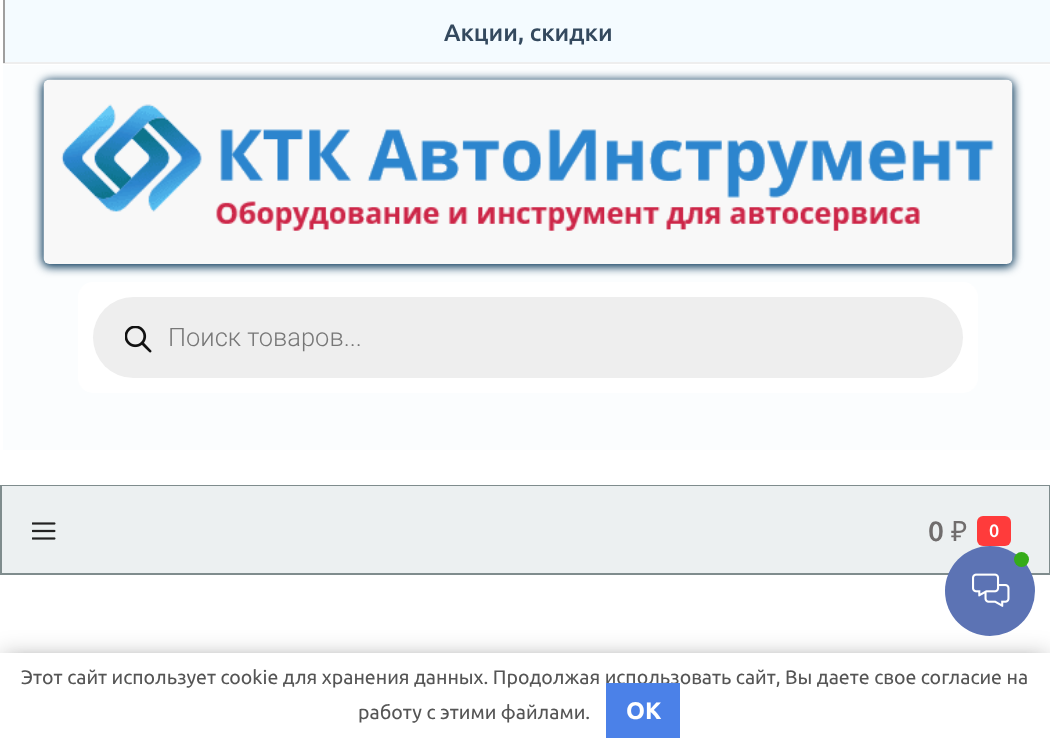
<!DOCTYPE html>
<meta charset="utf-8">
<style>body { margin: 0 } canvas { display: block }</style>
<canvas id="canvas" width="1050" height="756"></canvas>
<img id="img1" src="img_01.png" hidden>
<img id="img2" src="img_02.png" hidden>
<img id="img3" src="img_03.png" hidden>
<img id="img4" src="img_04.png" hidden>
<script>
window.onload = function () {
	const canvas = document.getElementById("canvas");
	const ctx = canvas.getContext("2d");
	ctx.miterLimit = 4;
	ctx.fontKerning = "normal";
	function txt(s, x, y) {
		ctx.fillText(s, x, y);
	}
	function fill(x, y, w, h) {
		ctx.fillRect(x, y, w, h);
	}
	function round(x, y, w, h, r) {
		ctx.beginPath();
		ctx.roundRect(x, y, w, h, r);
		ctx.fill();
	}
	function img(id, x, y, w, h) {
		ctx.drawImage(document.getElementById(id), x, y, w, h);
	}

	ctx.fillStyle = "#FFFFFF";
	fill(0, 0, 1050, 756);
	ctx.fillStyle = "#F4FBFF";
	fill(5, 0, 1045, 62);
	ctx.fillStyle = "#EEEEEE";
	fill(3, 62, 1047, 2);
	ctx.fillStyle = "#9F9F9F";
	fill(3, 0, 2, 63);
	ctx.fillStyle = "#FBFDFE";
	fill(3, 65, 1047, 385);
	ctx.fillStyle = "#FFFFFF";
	round(78, 282, 900, 111, 15);
	ctx.fillStyle = "#003154";
	ctx.filter = "blur(5px)";
	ctx.beginPath();
	ctx.roundRect(42, 80, 972, 187, 8);
	ctx.fill();
	ctx.filter = "none";
	img("img1", 43, 79, 970, 185);
	ctx.fillStyle = "#EEEEEE";
	round(93, 297, 870, 81, 40.5);
	img("img2", 125, 326, 27, 27);
	ctx.strokeStyle = "#7F8C8D";
	ctx.lineWidth = 2;
	ctx.strokeRect(1, 486, 1048, 88);
	ctx.fillStyle = "#ECF0F1";
	fill(2, 486, 1047, 87);
	img("img3", 32, 522, 24, 18);
	ctx.fillStyle = "#FF3B3B";
	round(977, 516, 34, 30, 6);
	ctx.fillStyle = "rgba(0, 0, 0, 0.2)";
	ctx.filter = "blur(11px)";
	ctx.beginPath();
	ctx.rect(0, 653, 1050, 103);
	ctx.fill();
	ctx.filter = "none";
	ctx.fillStyle = "#5C73B4";
	ctx.beginPath();
	ctx.arc(990, 591, 45, 0, Math.PI * 2);
	ctx.fill();
	ctx.fillStyle = "#35AC19";
	ctx.beginPath();
	ctx.arc(1021.5, 559.5, 7.5, 0, Math.PI * 2);
	ctx.fill();
	img("img4", 972, 573, 38, 34);
	ctx.fillStyle = "rgba(0, 0, 0, 0.5)";
	ctx.filter = "blur(7.5px)";
	ctx.beginPath();
	ctx.rect(15, 663, 1020, 87);
	ctx.fill();
	ctx.filter = "none";
	ctx.fillStyle = "#FFFFFF";
	fill(0, 653, 1050, 103);
	ctx.font = "500 24px Ubuntu";
	ctx.fillStyle = "#34495E";
	txt("Акции, скидки", 444, 41);
	ctx.font = "300 25.5px Roboto";
	ctx.fillStyle = "#777777";
	txt("Поиск товаров...", 168, 346);
	ctx.font = "500 28px Ubuntu";
	ctx.fillStyle = "#706D6D";
	txt("0", 928, 541);
	ctx.font = "28px Noto Sans";
	txt("₽", 951, 541);
	ctx.font = "500 18px Ubuntu";
	ctx.fillStyle = "#FFFFFF";
	txt("0", 989, 537);
	ctx.font = "19.5px Ubuntu";
	ctx.fillStyle = "#555555";
	txt("Этот сайт использует cookie для хранения данных. Продолжая использовать сайт, Вы даете свое согласие на", 21, 684);
	txt("работу с этими файлами.", 358, 719);
	ctx.fillStyle = "#4B81E8";
	fill(606, 683, 74, 55);
	ctx.font = "bold 24px Ubuntu";
	ctx.fillStyle = "#FFFFFF";
	txt("OK", 626, 719);
};
</script>
